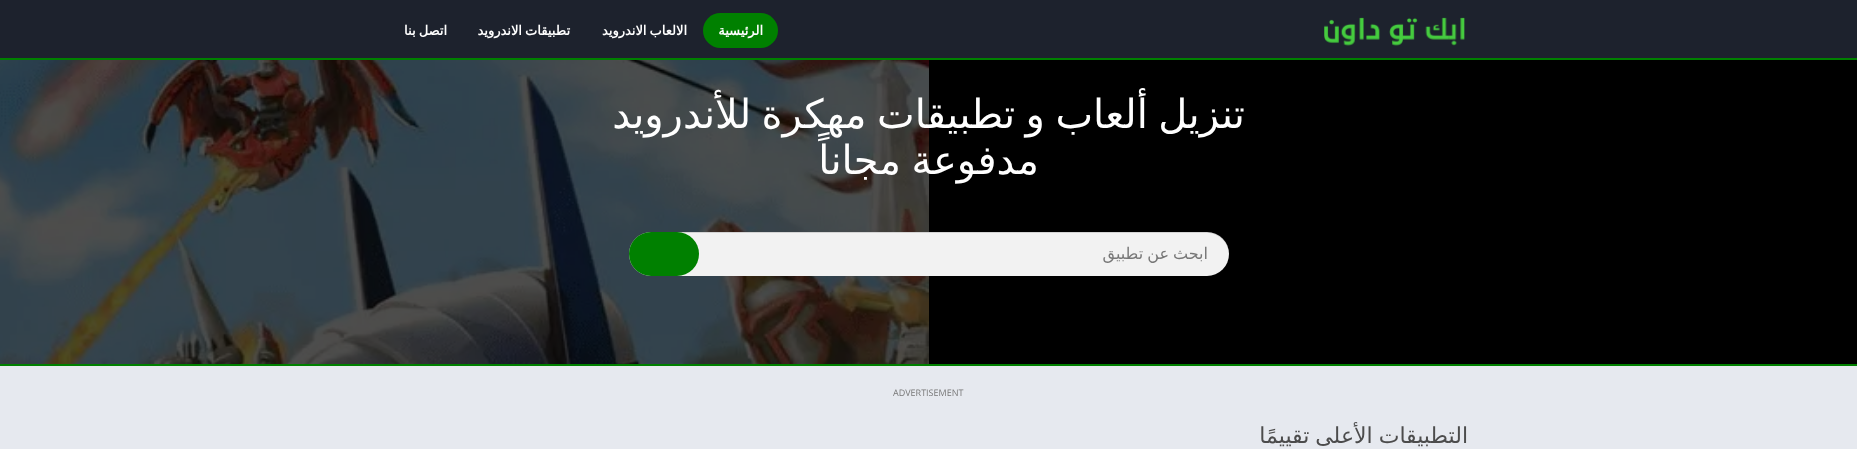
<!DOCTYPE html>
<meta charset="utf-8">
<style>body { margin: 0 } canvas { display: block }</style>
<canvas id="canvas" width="1857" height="449"></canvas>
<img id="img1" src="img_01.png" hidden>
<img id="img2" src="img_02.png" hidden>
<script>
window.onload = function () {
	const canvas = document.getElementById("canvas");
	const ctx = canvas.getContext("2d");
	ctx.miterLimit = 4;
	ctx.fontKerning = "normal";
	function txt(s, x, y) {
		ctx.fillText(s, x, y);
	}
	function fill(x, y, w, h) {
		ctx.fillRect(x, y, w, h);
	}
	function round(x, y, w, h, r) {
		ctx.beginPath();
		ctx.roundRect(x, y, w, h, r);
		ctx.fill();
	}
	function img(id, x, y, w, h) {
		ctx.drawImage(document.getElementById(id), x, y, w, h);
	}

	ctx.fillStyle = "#E6E9EF";
	fill(0, 0, 1857, 449);
	ctx.fillStyle = "#1D222D";
	fill(0, 0, 1857, 58);
	ctx.fillStyle = "#008000";
	fill(0, 58, 1857, 2);
	img("img1", 1324, 17, 141, 29);
	round(703, 13, 75, 35, 17.5);
	ctx.fillStyle = "#000000";
	fill(0, 60, 1857, 304);
	ctx.fillStyle = "#008000";
	fill(0, 364, 1857, 2);
	img("img2", 0, 60, 929, 304);
	ctx.fillStyle = "#F2F2F2";
	round(629, 232, 600, 44, 22);
	ctx.fillStyle = "rgba(0, 0, 0, 0.12)";
	ctx.beginPath();
	ctx.moveTo(651, 233);
	ctx.lineTo(1207, 233);
	ctx.bezierCurveTo(1219, 233, 1229, 243, 1229, 255);
	ctx.lineTo(1229, 254);
	ctx.bezierCurveTo(1229, 242, 1219, 232, 1207, 232);
	ctx.lineTo(651, 232);
	ctx.bezierCurveTo(639, 232, 629, 242, 629, 254);
	ctx.lineTo(629, 255);
	ctx.bezierCurveTo(629, 243, 639, 233, 651, 233);
	ctx.closePath();
	ctx.fill();
	ctx.fillStyle = "#008000";
	round(629, 232, 70, 44, 22);
	ctx.direction = "rtl";
	ctx.font = "bold 13px DejaVu Sans";
	ctx.fillStyle = "#FFFFFF";
	txt("الرئيسية", 763, 35);
	ctx.wordSpacing = "-1px";
	txt("الالعاب الاندرويد", 687, 35);
	txt("تطبيقات الاندرويد", 570, 35);
	txt("اتصل بنا", 447, 35);
	ctx.wordSpacing = "-2.25px";
	ctx.font = "40px DejaVu Sans";
	txt("تنزيل ألعاب و تطبيقات مهكرة للأندرويد", 1245, 128);
	txt("مدفوعة مجاناً", 1039, 174);
	ctx.wordSpacing = "-1px";
	ctx.font = "16px DejaVu Sans";
	ctx.fillStyle = "#777777";
	txt("ابحث عن تطبيق", 1208, 259);
	ctx.wordSpacing = "0px";
	ctx.direction = "ltr";
	ctx.font = "9px Open Sans";
	txt("ADVERTISEMENT", 893, 396);
	ctx.wordSpacing = "-1px";
	ctx.direction = "rtl";
	ctx.font = "22px DejaVu Sans";
	ctx.fillStyle = "#4C4C4C";
	txt("التطبيقات الأعلى تقييمًا", 1468, 443);
};
</script>
